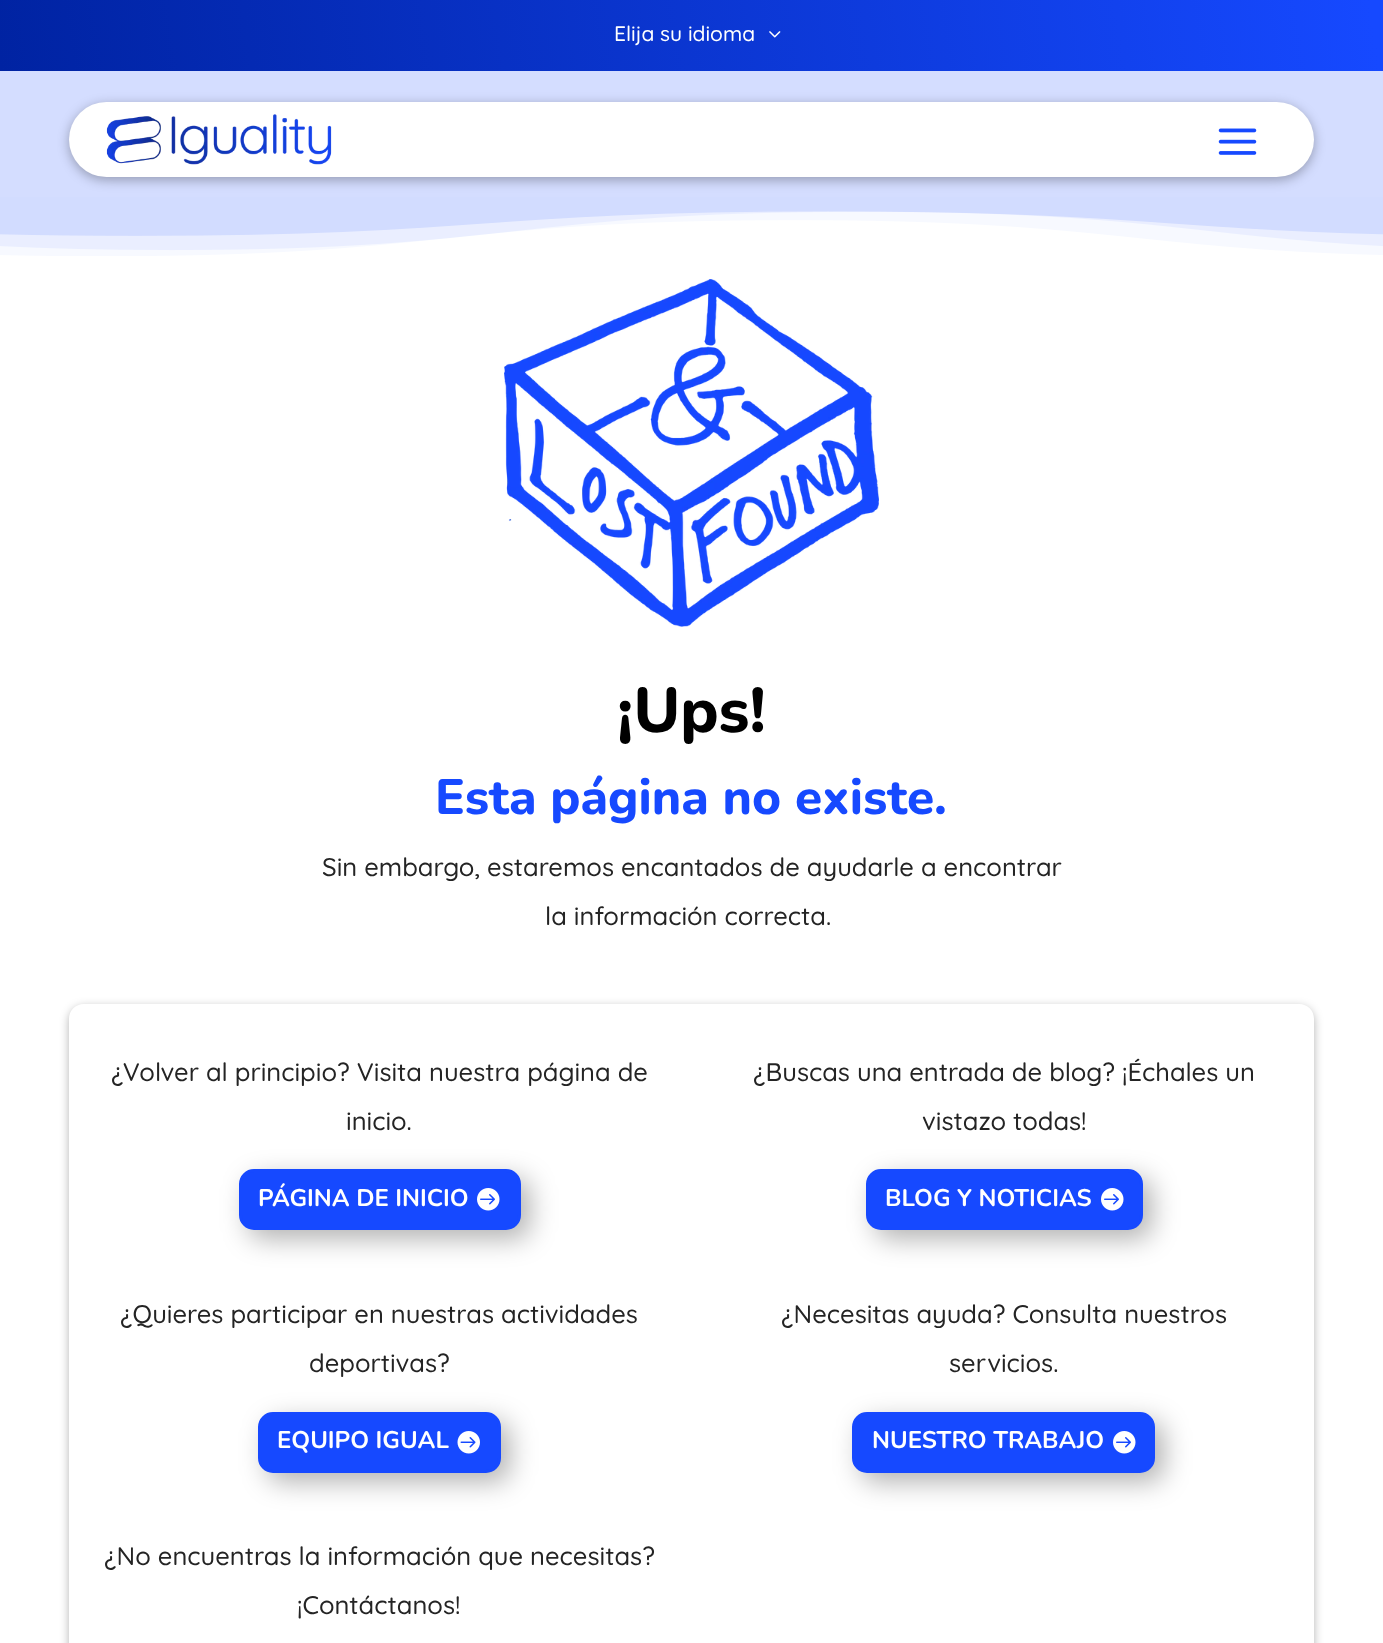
<!DOCTYPE html>
<meta charset="utf-8">
<style>body { margin: 0 } canvas { display: block }</style>
<canvas id="canvas" width="1383" height="1643"></canvas>
<img id="img1" src="img_01.png" hidden>
<img id="img2" src="img_04.png" hidden>
<img id="img3" src="img_02.png" hidden>
<img id="img4" src="img_03.png" hidden>
<img id="img5" src="img_05.png" hidden>
<img id="img6" src="img_06.png" hidden>
<img id="img7" src="img_07.png" hidden>
<script>
window.onload = function () {
	const canvas = document.getElementById("canvas");
	const ctx = canvas.getContext("2d");
	ctx.miterLimit = 4;
	ctx.fontKerning = "normal";
	function txt(s, x, y) {
		ctx.fillText(s, x, y);
	}
	function fill(x, y, w, h) {
		ctx.fillRect(x, y, w, h);
	}
	function round(x, y, w, h, r) {
		ctx.beginPath();
		ctx.roundRect(x, y, w, h, r);
		ctx.fill();
	}
	function img(id, x, y, w, h) {
		ctx.drawImage(document.getElementById(id), x, y, w, h);
	}
	let gradient;

	ctx.fillStyle = "#FFFFFF";
	fill(0, 0, 1383, 1643);
	gradient = ctx.createLinearGradient(11, 143, 1372, -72);
	gradient.addColorStop(0, "#0023A2");
	gradient.addColorStop(0.99, "#1649FF");
	ctx.fillStyle = gradient;
	fill(0, 0, 1383, 71);
	img("img1", 769, 31, 12, 7);
	ctx.fillStyle = "#D4DDFF";
	fill(0, 71, 1383, 126);
	img("img2", 0, 197, 1383, 59);
	ctx.fillStyle = "rgba(0, 0, 0, 0.3)";
	ctx.filter = "blur(6px)";
	ctx.beginPath();
	ctx.roundRect(69, 105, 1245, 75, 37.5);
	ctx.fill();
	ctx.filter = "none";
	ctx.fillStyle = "#FFFFFF";
	round(69, 102, 1245, 75, 37.5);
	img("img3", 106, 114, 226, 51);
	img("img4", 1218, 128, 39, 27);
	img("img5", 504, 279, 375, 348);
	ctx.save();
	ctx.beginPath();
	ctx.moveTo(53, 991);
	ctx.lineTo(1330, 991);
	ctx.lineTo(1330, 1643);
	ctx.lineTo(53, 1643);
	ctx.closePath();
	ctx.moveTo(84, 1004);
	ctx.lineTo(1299, 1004);
	ctx.bezierCurveTo(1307.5, 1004, 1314, 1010.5, 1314, 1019);
	ctx.lineTo(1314, 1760);
	ctx.bezierCurveTo(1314, 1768.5, 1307.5, 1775, 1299, 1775);
	ctx.lineTo(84, 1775);
	ctx.bezierCurveTo(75.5, 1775, 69, 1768.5, 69, 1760);
	ctx.lineTo(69, 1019);
	ctx.bezierCurveTo(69, 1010.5, 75.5, 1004, 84, 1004);
	ctx.closePath();
	ctx.clip("evenodd");
	ctx.fillStyle = "rgba(0, 0, 0, 0.3)";
	ctx.filter = "blur(5px)";
	ctx.beginPath();
	ctx.roundRect(69, 1007, 1245, 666, 15);
	ctx.fill();
	ctx.filter = "none";
	ctx.restore();
	ctx.fillStyle = "rgba(0, 0, 0, 0.3)";
	ctx.filter = "blur(13.5px)";
	ctx.beginPath();
	ctx.roundRect(248, 1178, 282, 61, 15);
	ctx.fill();
	ctx.filter = "none";
	ctx.fillStyle = "#1649FF";
	ctx.beginPath();
	ctx.roundRect(240.5, 1170.5, 279, 58, 13.5);
	ctx.fill();
	ctx.strokeStyle = "#1649FF";
	ctx.lineWidth = 3;
	ctx.stroke();
	img("img6", 477, 1188, 23, 23);
	ctx.fillStyle = "rgba(0, 0, 0, 0.3)";
	ctx.filter = "blur(13.5px)";
	ctx.beginPath();
	ctx.roundRect(875, 1178, 277, 61, 15);
	ctx.fill();
	ctx.filter = "none";
	ctx.fillStyle = "#1649FF";
	ctx.beginPath();
	ctx.roundRect(867.5, 1170.5, 274, 58, 13.5);
	ctx.fill();
	ctx.stroke();
	img("img6", 1101, 1188, 23, 23);
	ctx.fillStyle = "rgba(0, 0, 0, 0.3)";
	ctx.filter = "blur(13.5px)";
	ctx.beginPath();
	ctx.roundRect(267, 1421, 243, 61, 15);
	ctx.fill();
	ctx.filter = "none";
	ctx.fillStyle = "#1649FF";
	ctx.beginPath();
	ctx.roundRect(259.5, 1413.5, 240, 58, 13.5);
	ctx.fill();
	ctx.stroke();
	img("img7", 457, 1431, 23, 23);
	ctx.fillStyle = "rgba(0, 0, 0, 0.3)";
	ctx.filter = "blur(13.5px)";
	ctx.beginPath();
	ctx.roundRect(861, 1421, 303, 61, 15);
	ctx.fill();
	ctx.filter = "none";
	ctx.fillStyle = "#1649FF";
	ctx.beginPath();
	ctx.roundRect(853.5, 1413.5, 300, 58, 13.5);
	ctx.fill();
	ctx.stroke();
	img("img6", 1113, 1431, 23, 23);
	ctx.font = "300 21px Quicksand";
	ctx.fillStyle = "#FFFFFF";
	txt("Elija su idioma", 614, 41);
	ctx.font = "200 63px Nunito";
	ctx.fillStyle = "#000000";
	txt("¡Ups!", 617, 732);
	ctx.font = "200 49.5px Nunito";
	ctx.fillStyle = "#1649FF";
	txt("Esta página no existe.", 435, 814);
	ctx.font = "300 25.5px Quicksand";
	ctx.fillStyle = "#242424";
	txt("Sin embargo, estaremos encantados de ayudarle a encontrar", 322, 876);
	txt("la información correcta.", 545, 925);
	txt("¿Volver al principio? Visita nuestra página de", 111, 1081);
	txt("inicio.", 346, 1130);
	ctx.font = "200 24px 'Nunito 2'";
	ctx.fillStyle = "#FFFFFF";
	txt("PÁGINA DE INICIO", 258, 1206);
	ctx.font = "300 25.5px Quicksand";
	ctx.fillStyle = "#242424";
	txt("¿Buscas una entrada de blog? ¡Échales un", 753, 1081);
	txt("vistazo todas!", 922, 1130);
	ctx.font = "200 24px 'Nunito 2'";
	ctx.fillStyle = "#FFFFFF";
	txt("BLOG Y NOTICIAS", 885, 1206);
	ctx.font = "300 25.5px Quicksand";
	ctx.fillStyle = "#242424";
	txt("¿Quieres participar en nuestras actividades", 120, 1323);
	txt("deportivas?", 309, 1372);
	ctx.font = "200 24px 'Nunito 2'";
	ctx.fillStyle = "#FFFFFF";
	txt("EQUIPO IGUAL", 277, 1448);
	ctx.font = "300 25.5px Quicksand";
	ctx.fillStyle = "#242424";
	txt("¿Necesitas ayuda? Consulta nuestros", 781, 1323);
	txt("servicios.", 949, 1372);
	ctx.font = "200 24px 'Nunito 2'";
	ctx.fillStyle = "#FFFFFF";
	txt("NUESTRO TRABAJO", 872, 1448);
	ctx.font = "300 25.5px Quicksand";
	ctx.fillStyle = "#242424";
	txt("¿No encuentras la información que necesitas?", 104, 1565);
	txt("¡Contáctanos!", 297, 1614);
};
</script>
